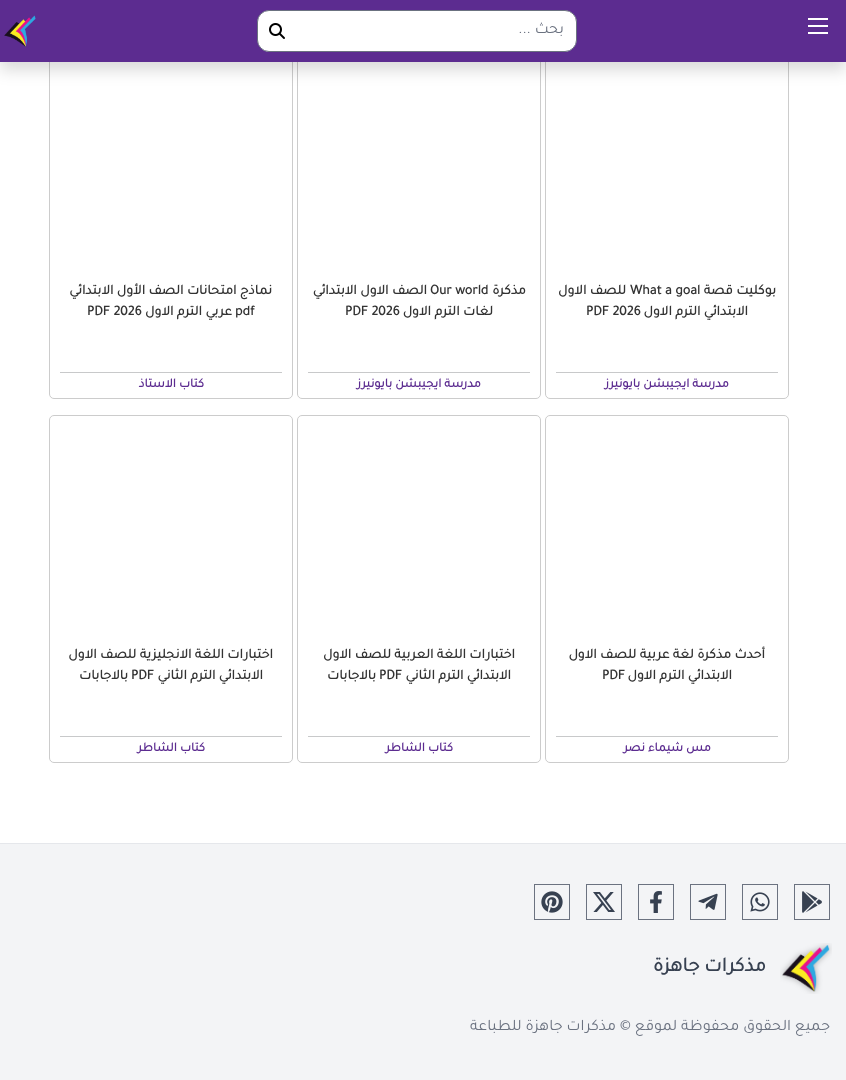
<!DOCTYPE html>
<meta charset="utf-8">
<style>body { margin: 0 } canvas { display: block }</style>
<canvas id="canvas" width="846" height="1080"></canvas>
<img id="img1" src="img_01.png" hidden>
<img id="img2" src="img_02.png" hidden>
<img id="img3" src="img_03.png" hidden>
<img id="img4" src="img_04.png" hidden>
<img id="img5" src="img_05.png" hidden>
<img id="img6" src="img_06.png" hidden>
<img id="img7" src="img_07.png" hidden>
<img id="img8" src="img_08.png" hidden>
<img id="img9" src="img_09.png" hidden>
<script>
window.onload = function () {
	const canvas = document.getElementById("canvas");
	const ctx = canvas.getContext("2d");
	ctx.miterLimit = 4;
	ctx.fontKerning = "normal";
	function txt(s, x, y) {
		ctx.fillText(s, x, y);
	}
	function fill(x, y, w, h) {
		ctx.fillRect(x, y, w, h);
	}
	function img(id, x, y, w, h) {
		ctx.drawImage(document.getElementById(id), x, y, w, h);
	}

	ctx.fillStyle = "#FFFFFF";
	fill(0, 0, 846, 1080);
	ctx.beginPath();
	ctx.roundRect(545.5, 51.5, 243, 347, 4.5);
	ctx.strokeStyle = "#CCCCCC";
	ctx.stroke();
	ctx.beginPath();
	ctx.roundRect(297.5, 51.5, 243, 347, 4.5);
	ctx.stroke();
	ctx.beginPath();
	ctx.roundRect(49.5, 51.5, 243, 347, 4.5);
	ctx.stroke();
	ctx.fillStyle = "rgba(0, 0, 0, 0.15)";
	ctx.filter = "blur(8px)";
	ctx.beginPath();
	ctx.rect(0, 8, 846, 62);
	ctx.fill();
	ctx.filter = "none";
	ctx.fillStyle = "#5C2C90";
	fill(0, 0, 846, 62);
	ctx.beginPath();
	ctx.moveTo(808, 33);
	ctx.lineTo(828, 33);
	ctx.moveTo(808, 19);
	ctx.lineTo(828, 19);
	ctx.moveTo(808, 26);
	ctx.lineTo(828, 26);
	ctx.strokeStyle = "#FFFFFF";
	ctx.lineWidth = 2;
	ctx.stroke();
	ctx.fillStyle = "#FFFFFF";
	ctx.beginPath();
	ctx.roundRect(257.5, 10.5, 319, 41, 11.5);
	ctx.fill();
	ctx.strokeStyle = "#6B7280";
	ctx.lineWidth = 1;
	ctx.stroke();
	img("img1", 269, 23, 16, 16);
	img("img2", 4, 15, 32, 32);
	ctx.fillStyle = "#C8C9CA";
	fill(556, 372, 222, 1);
	fill(308, 372, 222, 1);
	fill(60, 372, 222, 1);
	ctx.beginPath();
	ctx.roundRect(545.5, 415.5, 243, 347, 4.5);
	ctx.strokeStyle = "#CCCCCC";
	ctx.stroke();
	fill(556, 736, 222, 1);
	ctx.beginPath();
	ctx.roundRect(297.5, 415.5, 243, 347, 4.5);
	ctx.stroke();
	fill(308, 736, 222, 1);
	ctx.beginPath();
	ctx.roundRect(49.5, 415.5, 243, 347, 4.5);
	ctx.stroke();
	fill(60, 736, 222, 1);
	ctx.fillStyle = "#F3F4F6";
	fill(0, 844, 846, 236);
	ctx.fillStyle = "#E5E7EB";
	fill(0, 843, 846, 1);
	ctx.strokeStyle = "#6B7280";
	ctx.strokeRect(794.5, 884.5, 35, 35);
	img("img3", 802, 891, 20, 22);
	ctx.strokeRect(742.5, 884.5, 35, 35);
	img("img4", 750, 892, 20, 20);
	ctx.strokeRect(690.5, 884.5, 35, 35);
	img("img5", 698, 893, 20, 17);
	ctx.strokeRect(638.5, 884.5, 35, 35);
	img("img6", 650, 891, 12, 22);
	ctx.strokeRect(586.5, 884.5, 35, 35);
	img("img7", 593, 892, 22, 20);
	ctx.strokeRect(534.5, 884.5, 35, 35);
	img("img8", 541, 891, 22, 22);
	img("img9", 780, 943, 52, 51);
	ctx.direction = "rtl";
	ctx.font = "16px Tajawal";
	ctx.fillStyle = "#6B7280";
	txt("بحث ...", 564, 33);
	ctx.font = "bold 14px Tajawal";
	ctx.fillStyle = "#333333";
	txt("بوكليت قصة", 776, 294);
	ctx.direction = "ltr";
	txt("What a goal", 630, 294);
	ctx.direction = "rtl";
	txt("للصف الاول", 626, 294);
	txt("الابتدائي الترم الاول", 748, 315);
	ctx.direction = "ltr";
	txt("PDF 2026", 586, 315);
	ctx.direction = "rtl";
	ctx.font = "bold 12.75px Tajawal";
	ctx.fillStyle = "#5C2C90";
	txt("مدرسة ايجيبشن بايونيرز", 729, 387);
	ctx.font = "bold 14px Tajawal";
	ctx.fillStyle = "#333333";
	txt("مذكرة", 526, 294);
	ctx.direction = "ltr";
	txt("Our world", 430, 294);
	ctx.direction = "rtl";
	txt("الصف الاول الابتدائي", 427, 294);
	txt("لغات الترم الاول", 493, 315);
	ctx.direction = "ltr";
	txt("PDF 2026", 345, 315);
	ctx.direction = "rtl";
	ctx.font = "bold 12.75px Tajawal";
	ctx.fillStyle = "#5C2C90";
	txt("مدرسة ايجيبشن بايونيرز", 481, 387);
	ctx.font = "bold 14px Tajawal";
	ctx.fillStyle = "#333333";
	txt("نماذج امتحانات الصف الأول الابتدائي", 272, 294);
	ctx.direction = "ltr";
	txt("pdf", 235, 315);
	ctx.direction = "rtl";
	txt("عربي الترم الاول", 232, 315);
	ctx.direction = "ltr";
	txt("PDF 2026", 87, 315);
	ctx.direction = "rtl";
	ctx.font = "bold 12.75px Tajawal";
	ctx.fillStyle = "#5C2C90";
	txt("كتاب الاستاذ", 204, 387);
	ctx.font = "bold 14px Tajawal";
	ctx.fillStyle = "#333333";
	txt("أحدث مذكرة لغة عربية للصف الاول", 765, 658);
	txt("الابتدائي الترم الاول", 732, 679);
	ctx.direction = "ltr";
	txt("PDF", 602, 679);
	ctx.direction = "rtl";
	ctx.font = "bold 12.75px Tajawal";
	ctx.fillStyle = "#5C2C90";
	txt("مس شيماء نصر", 711, 751);
	ctx.font = "bold 14px Tajawal";
	ctx.fillStyle = "#333333";
	txt("اختبارات اللغة العربية للصف الاول", 515, 658);
	txt("الابتدائي الترم الثاني", 511, 679);
	ctx.direction = "ltr";
	txt("PDF", 379, 679);
	ctx.direction = "rtl";
	txt("بالاجابات", 376, 679);
	ctx.font = "bold 12.75px Tajawal";
	ctx.fillStyle = "#5C2C90";
	txt("كتاب الشاطر", 453, 751);
	ctx.font = "bold 14px Tajawal";
	ctx.fillStyle = "#333333";
	txt("اختبارات اللغة الانجليزية للصف الاول", 273, 658);
	txt("الابتدائي الترم الثاني", 263, 679);
	ctx.direction = "ltr";
	txt("PDF", 131, 679);
	ctx.direction = "rtl";
	txt("بالاجابات", 128, 679);
	ctx.font = "bold 12.75px Tajawal";
	ctx.fillStyle = "#5C2C90";
	txt("كتاب الشاطر", 205, 751);
	ctx.font = "bold 20px Tajawal";
	ctx.fillStyle = "#374151";
	txt("مذكرات جاهزة", 766, 971);
	ctx.font = "16px Tajawal";
	ctx.fillStyle = "#6B7280";
	txt("جميع الحقوق محفوظة لموقع © مذكرات جاهزة للطباعة", 830, 1030);
};
</script>
